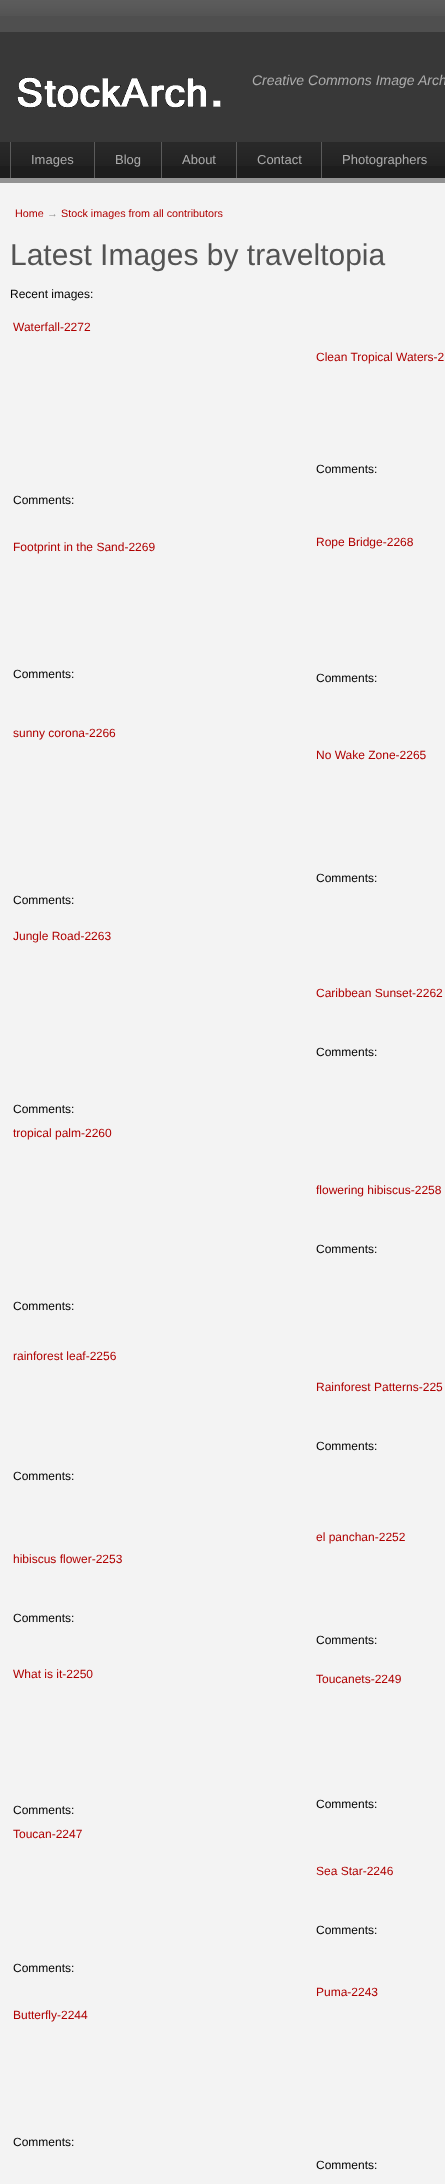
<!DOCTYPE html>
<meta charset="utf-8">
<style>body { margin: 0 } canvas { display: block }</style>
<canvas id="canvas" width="445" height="2184"></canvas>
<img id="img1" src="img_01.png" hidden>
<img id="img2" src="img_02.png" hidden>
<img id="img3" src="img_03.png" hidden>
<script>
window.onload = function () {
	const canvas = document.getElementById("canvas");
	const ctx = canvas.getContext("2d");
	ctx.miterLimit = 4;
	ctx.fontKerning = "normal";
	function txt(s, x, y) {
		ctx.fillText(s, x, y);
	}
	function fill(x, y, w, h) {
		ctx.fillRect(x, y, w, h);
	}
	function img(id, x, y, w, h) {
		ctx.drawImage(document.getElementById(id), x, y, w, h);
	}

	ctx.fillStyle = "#F3F3F3";
	fill(0, 0, 445, 2184);
	ctx.fillStyle = "#4F4F4F";
	fill(0, 16, 445, 16);
	img("img1", 0, 0, 445, 16);
	ctx.fillStyle = "#383838";
	fill(0, 32, 445, 110);
	img("img2", 17, 77, 204, 31);
	ctx.fillStyle = "#1D1D1D";
	fill(0, 166, 445, 12);
	img("img3", 0, 142, 445, 24);
	ctx.fillStyle = "#929292";
	fill(0, 178, 445, 5);
	ctx.fillStyle = "#5B5B5B";
	fill(10, 142, 1, 36);
	fill(94, 142, 1, 36);
	fill(161, 142, 1, 36);
	fill(236, 142, 1, 36);
	fill(321, 142, 1, 36);
	ctx.font = "italic 14px Liberation Sans";
	ctx.fillStyle = "#ACACAC";
	txt("Creative Commons Image Arch", 252, 85);
	ctx.font = "13px Liberation Sans";
	txt("Images", 31, 164);
	txt("Blog", 115, 164);
	txt("About", 182, 164);
	txt("Contact", 257, 164);
	txt("Photographers", 342, 164);
	ctx.font = "10.75px Liberation Sans";
	ctx.fillStyle = "#AF0000";
	txt("Home", 15, 217);
	ctx.fillStyle = "#8E8E8E";
	txt("→", 47, 217);
	ctx.fillStyle = "#AF0000";
	txt("Stock images from all contributors", 61, 217);
	ctx.font = "30px Liberation Sans";
	ctx.fillStyle = "#535353";
	txt("Latest Images by traveltopia", 10, 265);
	ctx.font = "12px Liberation Sans";
	ctx.fillStyle = "#000000";
	txt("Recent images:", 10, 298);
	ctx.fillStyle = "#AF0000";
	txt("Waterfall-2272", 13, 331);
	ctx.fillStyle = "#000000";
	txt("Comments:", 13, 504);
	ctx.fillStyle = "#AF0000";
	txt("Clean Tropical Waters-2", 316, 361);
	ctx.fillStyle = "#000000";
	txt("Comments:", 316, 473);
	ctx.fillStyle = "#AF0000";
	txt("Footprint in the Sand-2269", 13, 551);
	ctx.fillStyle = "#000000";
	txt("Comments:", 13, 678);
	ctx.fillStyle = "#AF0000";
	txt("Rope Bridge-2268", 316, 546);
	ctx.fillStyle = "#000000";
	txt("Comments:", 316, 682);
	ctx.fillStyle = "#AF0000";
	txt("sunny corona-2266", 13, 737);
	ctx.fillStyle = "#000000";
	txt("Comments:", 13, 904);
	ctx.fillStyle = "#AF0000";
	txt("No Wake Zone-2265", 316, 759);
	ctx.fillStyle = "#000000";
	txt("Comments:", 316, 882);
	ctx.fillStyle = "#AF0000";
	txt("Jungle Road-2263", 13, 940);
	ctx.fillStyle = "#000000";
	txt("Comments:", 13, 1113);
	ctx.fillStyle = "#AF0000";
	txt("Caribbean Sunset-2262", 316, 997);
	ctx.fillStyle = "#000000";
	txt("Comments:", 316, 1056);
	ctx.fillStyle = "#AF0000";
	txt("tropical palm-2260", 13, 1137);
	ctx.fillStyle = "#000000";
	txt("Comments:", 13, 1310);
	ctx.fillStyle = "#AF0000";
	txt("flowering hibiscus-2258", 316, 1194);
	ctx.fillStyle = "#000000";
	txt("Comments:", 316, 1253);
	ctx.fillStyle = "#AF0000";
	txt("rainforest leaf-2256", 13, 1360);
	ctx.fillStyle = "#000000";
	txt("Comments:", 13, 1480);
	ctx.fillStyle = "#AF0000";
	txt("Rainforest Patterns-225", 316, 1391);
	ctx.fillStyle = "#000000";
	txt("Comments:", 316, 1450);
	ctx.fillStyle = "#AF0000";
	txt("hibiscus flower-2253", 13, 1563);
	ctx.fillStyle = "#000000";
	txt("Comments:", 13, 1622);
	ctx.fillStyle = "#AF0000";
	txt("el panchan-2252", 316, 1541);
	ctx.fillStyle = "#000000";
	txt("Comments:", 316, 1644);
	ctx.fillStyle = "#AF0000";
	txt("What is it-2250", 13, 1678);
	ctx.fillStyle = "#000000";
	txt("Comments:", 13, 1814);
	ctx.fillStyle = "#AF0000";
	txt("Toucanets-2249", 316, 1683);
	ctx.fillStyle = "#000000";
	txt("Comments:", 316, 1808);
	ctx.fillStyle = "#AF0000";
	txt("Toucan-2247", 13, 1838);
	ctx.fillStyle = "#000000";
	txt("Comments:", 13, 1972);
	ctx.fillStyle = "#AF0000";
	txt("Sea Star-2246", 316, 1875);
	ctx.fillStyle = "#000000";
	txt("Comments:", 316, 1934);
	ctx.fillStyle = "#AF0000";
	txt("Butterfly-2244", 13, 2019);
	ctx.fillStyle = "#000000";
	txt("Comments:", 13, 2146);
	ctx.fillStyle = "#AF0000";
	txt("Puma-2243", 316, 1996);
	ctx.fillStyle = "#000000";
	txt("Comments:", 316, 2169);
};
</script>
